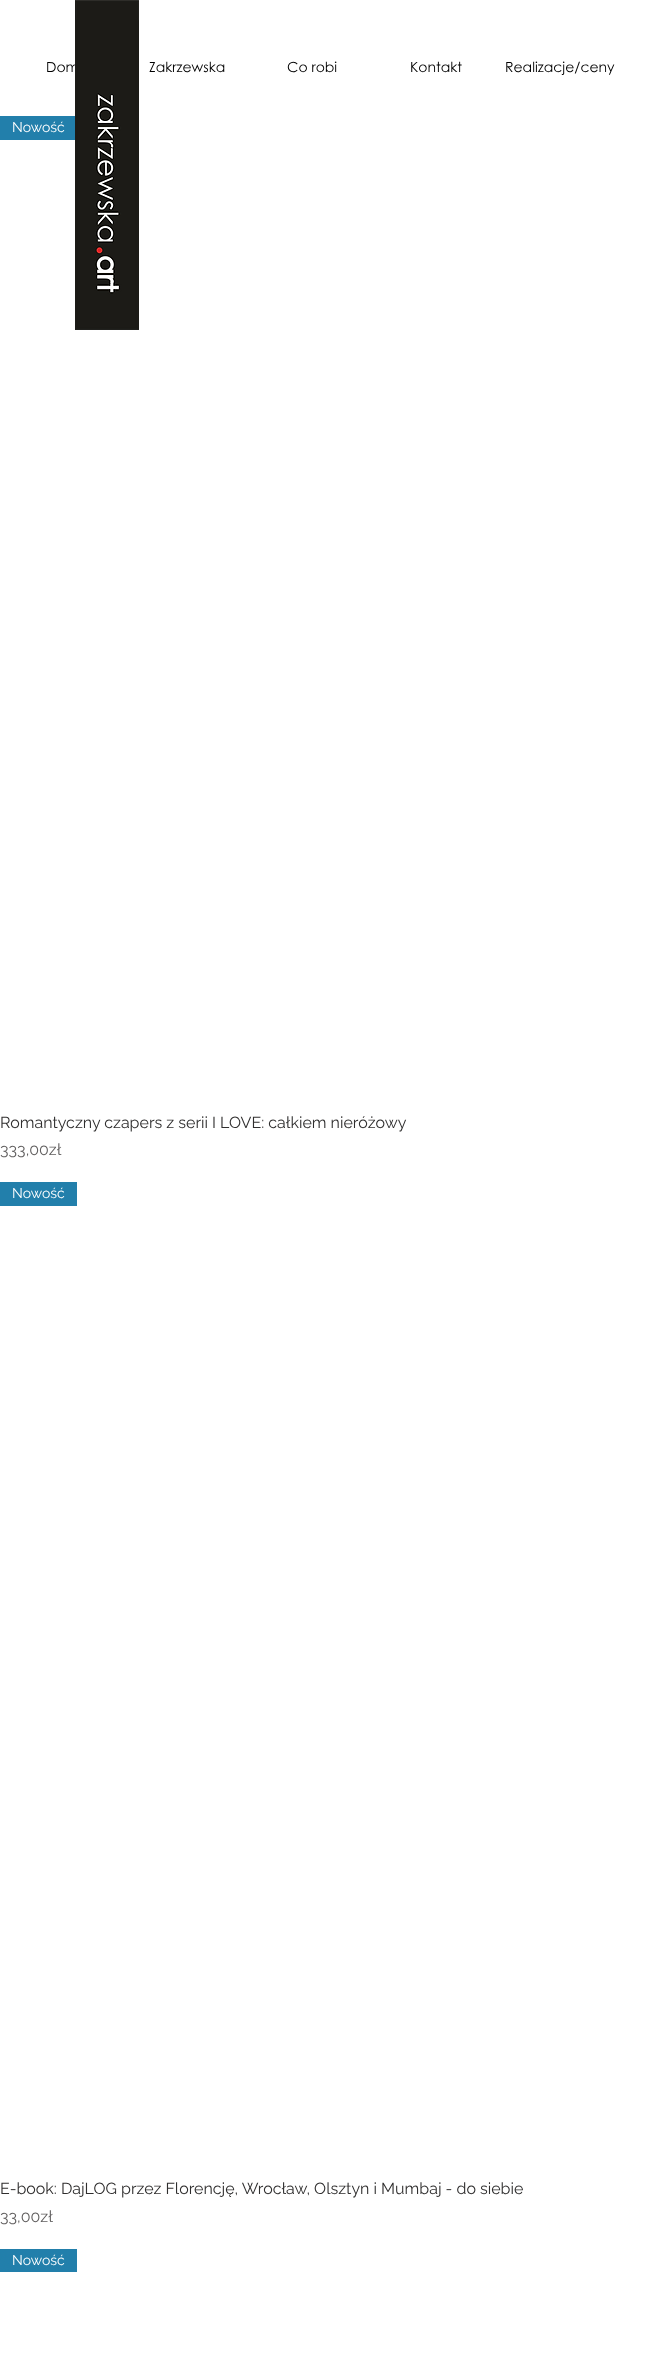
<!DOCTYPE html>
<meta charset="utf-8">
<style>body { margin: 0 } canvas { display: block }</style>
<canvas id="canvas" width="658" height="2369"></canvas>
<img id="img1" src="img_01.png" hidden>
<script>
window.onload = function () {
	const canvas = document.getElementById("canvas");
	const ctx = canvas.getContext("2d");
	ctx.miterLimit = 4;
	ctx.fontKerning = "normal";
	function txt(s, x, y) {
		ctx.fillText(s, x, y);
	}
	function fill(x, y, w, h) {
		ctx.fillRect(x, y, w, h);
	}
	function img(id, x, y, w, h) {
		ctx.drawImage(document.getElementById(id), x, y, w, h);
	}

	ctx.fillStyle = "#FFFFFF";
	fill(0, 0, 658, 2369);
	ctx.fillStyle = "#227FAB";
	fill(0, 116, 75, 24);
	fill(0, 1182, 77, 24);
	fill(0, 2249, 77, 23);
	ctx.font = "14px Century Gothic";
	ctx.fillStyle = "#000000";
	txt("Dom", 46, 72);
	img("img1", 75, 0, 64, 330);
	txt("Zakrzewska", 149, 72);
	txt("Co robi", 287, 72);
	txt("Kontakt", 410, 72);
	txt("Realizacje/ceny", 505, 72);
	ctx.font = "14px Raleway";
	ctx.fillStyle = "#FFFFFF";
	txt("Nowość", 12, 132);
	ctx.font = "16px Raleway";
	ctx.fillStyle = "#2F2E2E";
	txt("Romantyczny czapers z serii I LOVE: całkiem nieróżowy", 0, 1128);
	ctx.fillStyle = "#605E5E";
	txt("333,00zł", 0, 1155);
	ctx.font = "14px Raleway";
	ctx.fillStyle = "#FFFFFF";
	txt("Nowość", 12, 1198);
	ctx.font = "16px Raleway";
	ctx.fillStyle = "#2F2E2E";
	txt("E-book: DajLOG przez Florencję, Wrocław, Olsztyn i Mumbaj - do siebie", 0, 2194);
	ctx.fillStyle = "#605E5E";
	txt("33,00zł", 0, 2222);
	ctx.font = "14px Raleway";
	ctx.fillStyle = "#FFFFFF";
	txt("Nowość", 12, 2265);
};
</script>
